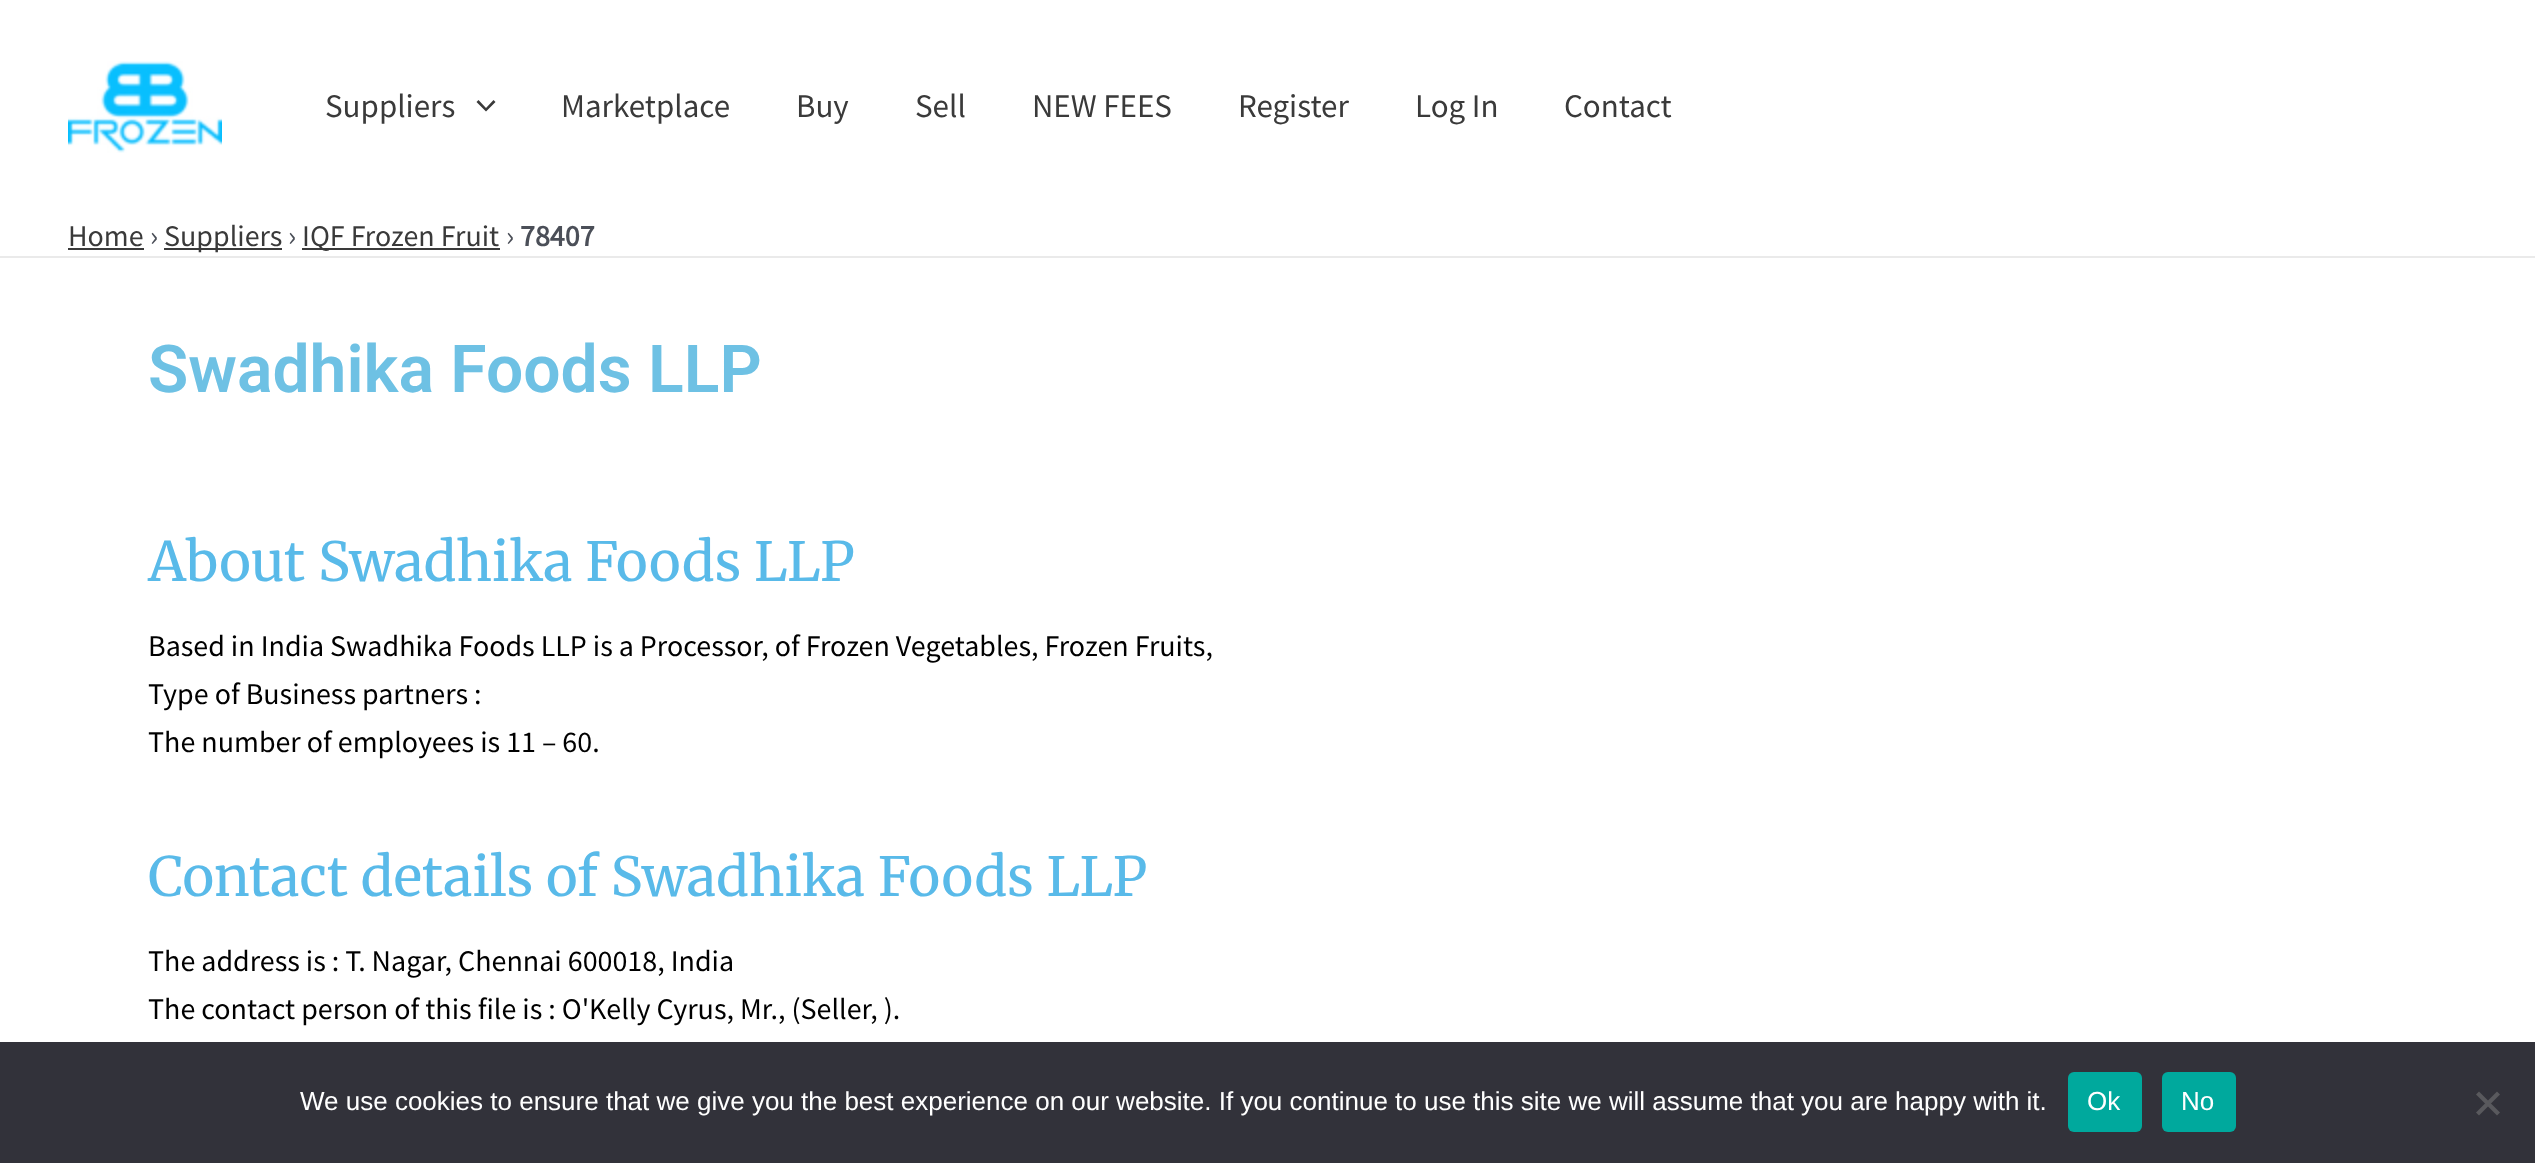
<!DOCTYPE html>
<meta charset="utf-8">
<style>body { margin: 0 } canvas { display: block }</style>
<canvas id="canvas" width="2535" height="1163"></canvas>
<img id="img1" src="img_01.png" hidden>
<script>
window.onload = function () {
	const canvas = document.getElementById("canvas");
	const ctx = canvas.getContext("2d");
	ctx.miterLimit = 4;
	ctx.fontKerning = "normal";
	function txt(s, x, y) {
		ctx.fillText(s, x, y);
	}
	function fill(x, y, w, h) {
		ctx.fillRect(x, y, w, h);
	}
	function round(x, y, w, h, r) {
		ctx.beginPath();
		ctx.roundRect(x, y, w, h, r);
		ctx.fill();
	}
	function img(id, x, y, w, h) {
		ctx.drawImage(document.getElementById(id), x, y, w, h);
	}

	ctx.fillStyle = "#FFFFFF";
	fill(0, 0, 2535, 1163);
	ctx.fillStyle = "#EAEAEA";
	fill(0, 256, 2535, 2);
	img("img1", 68, 61, 154, 92);
	ctx.fillStyle = "#3A3A3A";
	ctx.beginPath();
	ctx.moveTo(476.5, 102);
	ctx.lineTo(486, 111.5);
	ctx.lineTo(495.5, 102);
	ctx.lineTo(493.5, 100);
	ctx.lineTo(486, 108);
	ctx.lineTo(478.5, 100);
	ctx.closePath();
	ctx.fill();
	fill(68, 248, 76, 2);
	fill(164, 248, 118, 2);
	fill(302, 248, 198, 2);
	ctx.fillStyle = "#32323A";
	fill(0, 1042, 2535, 121);
	ctx.fillStyle = "#00A99D";
	round(2068, 1072, 74, 60, 6);
	round(2162, 1072, 74, 60, 6);
	ctx.fillStyle = "#59595D";
	ctx.beginPath();
	ctx.moveTo(2497, 1091.5);
	ctx.lineTo(2500, 1094.5);
	ctx.lineTo(2479, 1115.5);
	ctx.lineTo(2476, 1112.5);
	ctx.closePath();
	ctx.fill();
	ctx.beginPath();
	ctx.moveTo(2476, 1094.5);
	ctx.lineTo(2479, 1091.5);
	ctx.lineTo(2500, 1112.5);
	ctx.lineTo(2497, 1115.5);
	ctx.closePath();
	ctx.fill();
	ctx.font = "33px Source Sans Pro";
	ctx.fillStyle = "#3A3A3A";
	txt("Suppliers", 325, 117);
	txt("Marketplace", 561, 117);
	txt("Buy", 796, 117);
	txt("Sell", 915, 117);
	txt("NEW FEES", 1032, 117);
	txt("Register", 1238, 117);
	txt("Log In", 1415, 117);
	txt("Contact", 1564, 117);
	ctx.font = "30px Source Sans Pro";
	txt("Home", 68, 246);
	ctx.fillStyle = "#4B4F58";
	txt("›", 150, 246);
	ctx.fillStyle = "#3A3A3A";
	txt("Suppliers", 164, 246);
	ctx.fillStyle = "#4B4F58";
	txt("›", 288, 246);
	ctx.fillStyle = "#3A3A3A";
	txt("IQF Frozen Fruit", 302, 246);
	ctx.fillStyle = "#4B4F58";
	txt("›", 506, 246);
	ctx.font = "bold 30px Source Sans Pro";
	txt("78407", 520, 246);
	ctx.font = "600 66px Roboto";
	ctx.fillStyle = "#6EC1E4";
	txt("Swadhika Foods LLP", 148, 392);
	ctx.font = "54px Merriweather";
	ctx.fillStyle = "#59BAE9";
	txt("About Swadhika Foods LLP", 148, 581);
	ctx.font = "30px Source Sans Pro";
	ctx.fillStyle = "#000000";
	txt("Based in India Swadhika Foods LLP is a Processor, of Frozen Vegetables, Frozen Fruits,", 148, 656);
	txt("Type of Business partners :", 148, 704);
	txt("The number of employees is 11 – 60.", 148, 752);
	ctx.font = "54px Merriweather";
	ctx.fillStyle = "#59BAE9";
	txt("Contact details of Swadhika Foods LLP", 148, 896);
	ctx.font = "30px Source Sans Pro";
	ctx.fillStyle = "#000000";
	txt("The address is : T. Nagar, Chennai 600018, India", 148, 971);
	txt("The contact person of this file is : O'Kelly Cyrus, Mr., (Seller, ).", 148, 1019);
	ctx.font = "26px Liberation Sans";
	ctx.fillStyle = "#FFFFFF";
	txt("We use cookies to ensure that we give you the best experience on our website. If you continue to use this site we will assume that you are happy with it.", 300, 1110);
	txt("Ok", 2087, 1110);
	txt("No", 2181, 1110);
};
</script>
